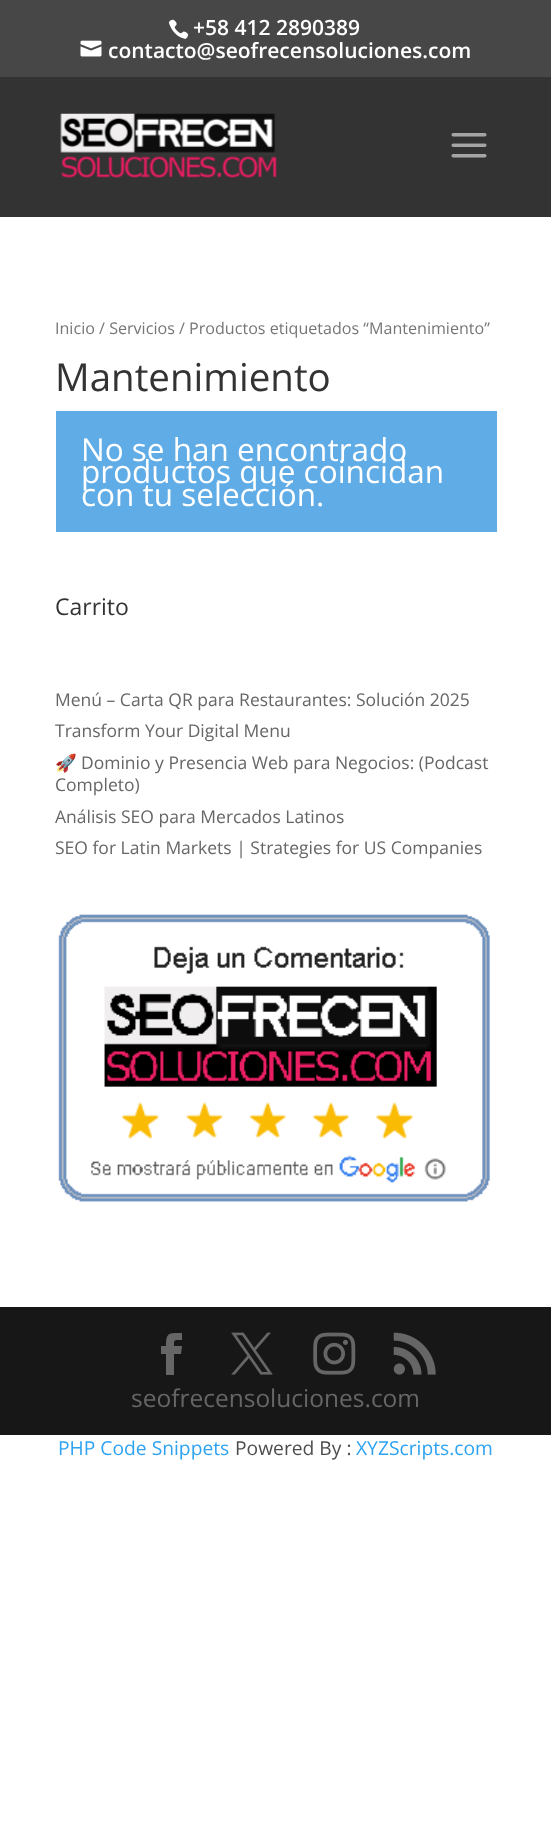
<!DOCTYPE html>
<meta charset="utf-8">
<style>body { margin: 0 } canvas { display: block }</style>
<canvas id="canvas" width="551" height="1827"></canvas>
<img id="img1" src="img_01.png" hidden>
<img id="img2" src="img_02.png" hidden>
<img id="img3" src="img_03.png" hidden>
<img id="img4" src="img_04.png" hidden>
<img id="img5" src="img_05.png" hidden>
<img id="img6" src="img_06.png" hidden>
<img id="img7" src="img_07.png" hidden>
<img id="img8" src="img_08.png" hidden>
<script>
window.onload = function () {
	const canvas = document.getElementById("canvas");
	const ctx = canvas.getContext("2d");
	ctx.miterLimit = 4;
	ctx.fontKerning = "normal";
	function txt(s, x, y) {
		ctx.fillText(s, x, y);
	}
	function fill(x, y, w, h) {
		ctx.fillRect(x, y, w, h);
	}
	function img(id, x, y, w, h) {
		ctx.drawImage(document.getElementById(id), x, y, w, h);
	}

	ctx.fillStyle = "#FFFFFF";
	fill(0, 0, 551, 1827);
	ctx.fillStyle = "#474747";
	fill(0, 0, 551, 77);
	img("img1", 168, 19, 21, 20);
	img("img2", 80, 40, 22, 17);
	ctx.fillStyle = "#333333";
	fill(0, 77, 551, 140);
	img("img3", 60, 113, 217, 65);
	img("img4", 451, 133, 36, 25);
	ctx.fillStyle = "#60ACE6";
	fill(56, 411, 441, 121);
	img("img5", 58, 914, 432, 288);
	ctx.fillStyle = "#171717";
	fill(0, 1307, 551, 128);
	ctx.fillStyle = "#666666";
	ctx.beginPath();
	ctx.moveTo(166, 1375);
	ctx.lineTo(174, 1375);
	ctx.lineTo(174, 1354);
	ctx.lineTo(181, 1354);
	ctx.lineTo(182, 1346);
	ctx.lineTo(174, 1346);
	ctx.bezierCurveTo(174, 1339, 174, 1340, 182, 1340);
	ctx.lineTo(182, 1333);
	ctx.bezierCurveTo(169, 1333, 166, 1332, 166, 1346);
	ctx.lineTo(161, 1346);
	ctx.lineTo(161, 1354);
	ctx.lineTo(166, 1354);
	ctx.closePath();
	ctx.fill();
	img("img6", 231, 1332, 42, 43);
	img("img7", 313, 1332, 43, 43);
	img("img8", 393, 1332, 43, 43);
	ctx.font = "600 21px Open Sans";
	ctx.fillStyle = "#FFFFFF";
	txt("+58 412 2890389", 193, 35);
	txt("contacto@seofrecensoluciones.com", 108, 58);
	ctx.font = "16.1px Open Sans";
	ctx.fillStyle = "#767676";
	txt("Inicio / Servicios / Productos etiquetados “Mantenimiento”", 55, 334);
	ctx.font = "38.5px Open Sans";
	ctx.fillStyle = "#333333";
	txt("Mantenimiento", 55, 391);
	ctx.font = "31.5px Open Sans";
	ctx.fillStyle = "#FFFFFF";
	txt("No se han encontrado", 81, 461);
	txt("productos que coincidan", 81, 483);
	txt("con tu selección.", 81, 506);
	ctx.font = "23px Open Sans";
	ctx.fillStyle = "#333333";
	txt("Carrito", 55, 615);
	ctx.font = "17.5px Open Sans";
	ctx.fillStyle = "#666666";
	txt("Menú – Carta QR para Restaurantes: Solución 2025", 55, 706);
	txt("Transform Your Digital Menu", 55, 737);
	ctx.font = "17.5px Noto Color Emoji";
	txt("🚀", 55, 769);
	ctx.font = "17.5px Open Sans";
	txt("Dominio y Presencia Web para Negocios: (Podcast", 81, 769);
	txt("Completo)", 55, 791);
	txt("Análisis SEO para Mercados Latinos", 55, 823);
	txt("SEO for Latin Markets | Strategies for US Companies", 55, 854);
	ctx.font = "24.5px Open Sans";
	txt("seofrecensoluciones.com", 131, 1407);
	ctx.font = "19.25px Open Sans";
	ctx.fillStyle = "#2EA3F2";
	txt("PHP Code Snippets", 58, 1455);
	ctx.fillStyle = "#4E4E4E";
	txt("Powered By :", 235, 1455);
	ctx.fillStyle = "#2EA3F2";
	txt("XYZScripts.com", 356, 1455);
};
</script>
